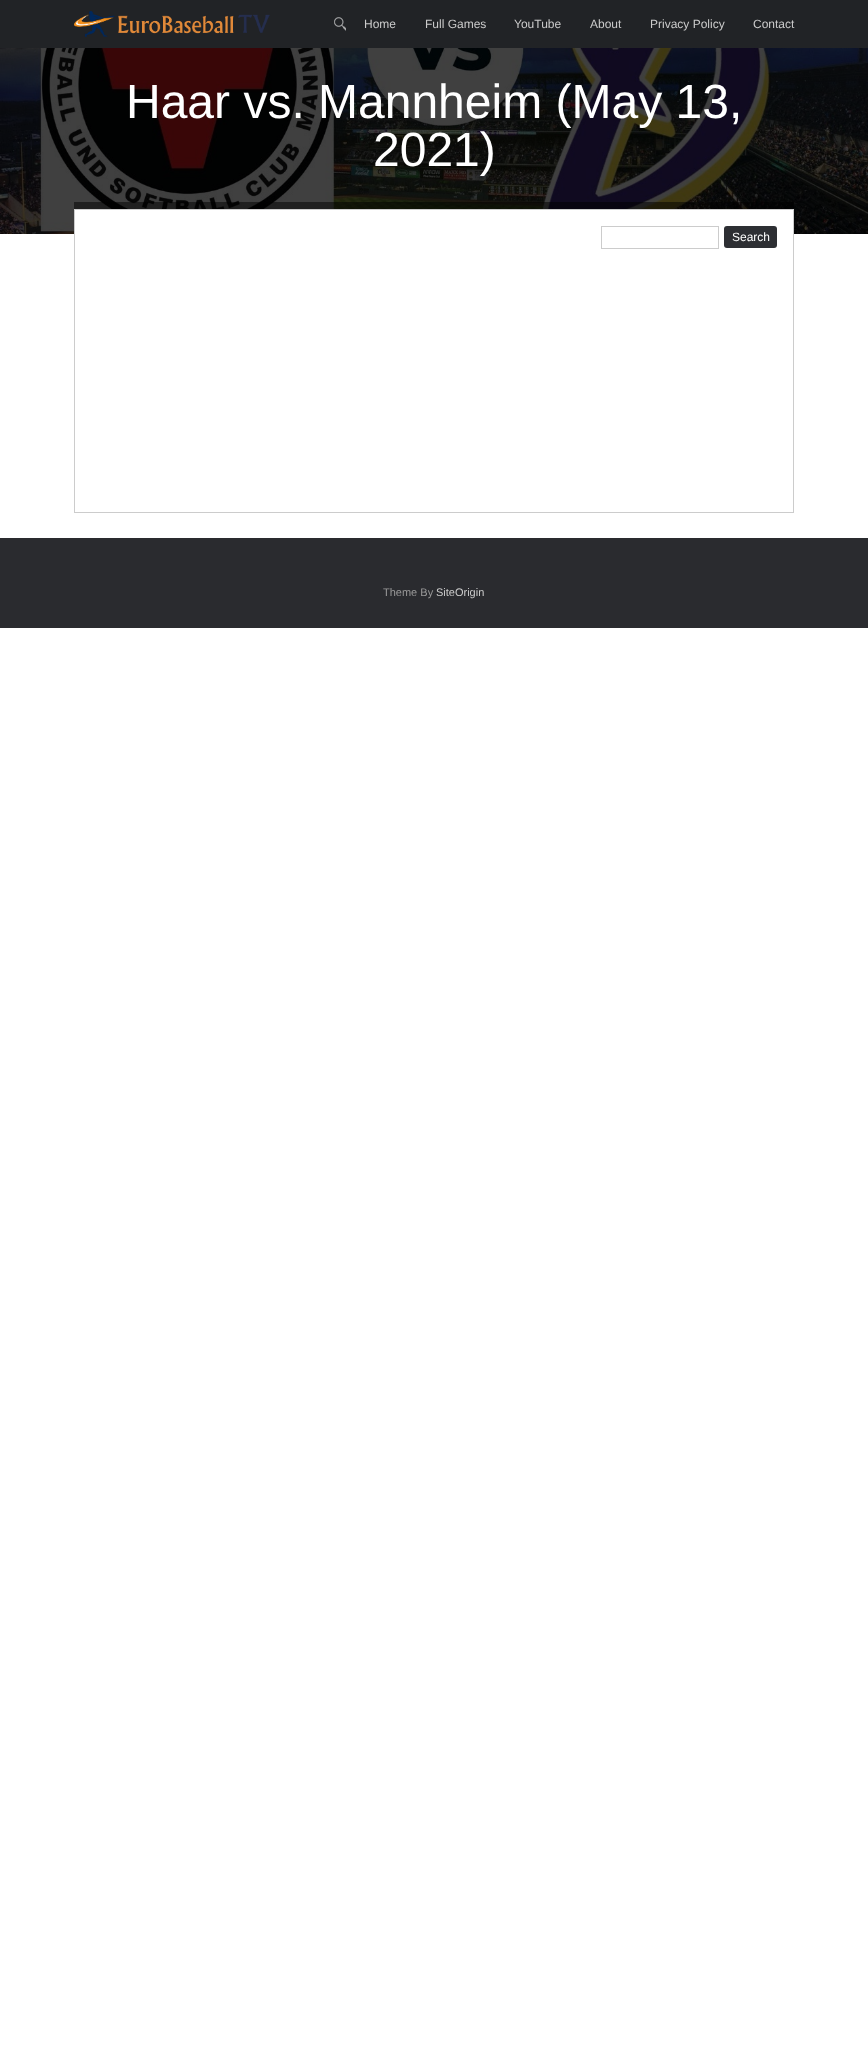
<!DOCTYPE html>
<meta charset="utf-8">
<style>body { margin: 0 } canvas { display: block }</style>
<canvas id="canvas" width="868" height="2053"></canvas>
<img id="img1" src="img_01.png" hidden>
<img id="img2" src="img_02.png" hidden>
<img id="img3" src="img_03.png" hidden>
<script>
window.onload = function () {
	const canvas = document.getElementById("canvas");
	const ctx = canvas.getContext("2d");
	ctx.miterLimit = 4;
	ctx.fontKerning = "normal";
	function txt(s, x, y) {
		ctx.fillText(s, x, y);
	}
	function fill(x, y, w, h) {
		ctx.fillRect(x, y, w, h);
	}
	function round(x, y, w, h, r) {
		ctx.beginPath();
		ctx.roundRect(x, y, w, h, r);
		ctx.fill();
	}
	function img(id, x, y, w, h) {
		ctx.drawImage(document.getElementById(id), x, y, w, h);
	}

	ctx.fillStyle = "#FFFFFF";
	fill(0, 0, 868, 2053);
	ctx.fillStyle = "#212326";
	fill(0, 0, 868, 48);
	img("img1", 74, 11, 196, 26);
	img("img2", 334, 17, 12, 14);
	img("img3", 0, 48, 868, 186);
	ctx.fillStyle = "rgba(0, 0, 0, 0.5)";
	fill(74, 202, 720, 7);
	ctx.fillStyle = "#FFFFFF";
	fill(75, 210, 718, 24);
	ctx.strokeStyle = "#CCCCCC";
	ctx.strokeRect(74.5, 209.5, 719, 303);
	ctx.strokeRect(601.5, 226.5, 117, 22);
	ctx.fillStyle = "#2D2F33";
	round(724, 226, 53, 22, 3);
	ctx.fillStyle = "#2A2B2F";
	fill(0, 538, 868, 90);
	ctx.font = "12px Liberation Sans";
	ctx.fillStyle = "#CBCBCB";
	txt("Home", 364, 28);
	txt("Full Games", 425, 28);
	txt("YouTube", 514, 28);
	txt("About", 590, 28);
	txt("Privacy Policy", 650, 28);
	txt("Contact", 753, 28);
	ctx.font = "48px Liberation Sans";
	ctx.fillStyle = "#FFFFFF";
	txt("Haar vs. Mannheim (May 13,", 126, 118);
	txt("2021)", 373, 166);
	ctx.font = "12px Liberation Sans";
	txt("Search", 732, 241);
	ctx.font = "11px Liberation Sans";
	ctx.fillStyle = "#999999";
	txt("Theme By", 383, 596);
	ctx.fillStyle = "#CBCBCB";
	txt("SiteOrigin", 436, 596);
};
</script>
